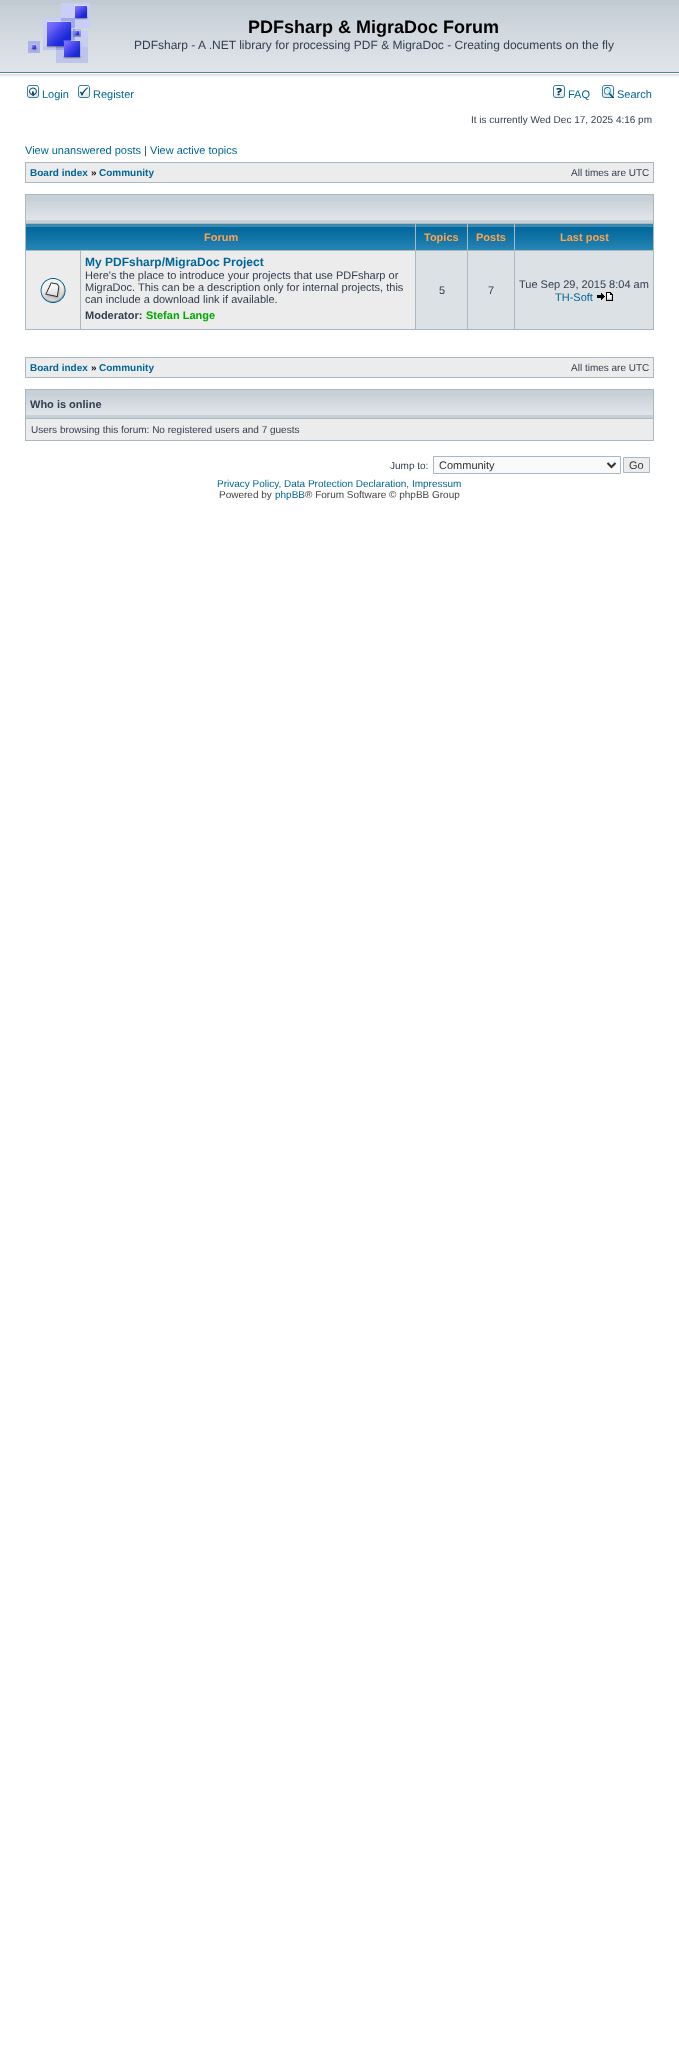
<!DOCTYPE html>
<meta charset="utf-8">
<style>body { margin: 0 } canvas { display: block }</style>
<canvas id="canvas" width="679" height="2053"></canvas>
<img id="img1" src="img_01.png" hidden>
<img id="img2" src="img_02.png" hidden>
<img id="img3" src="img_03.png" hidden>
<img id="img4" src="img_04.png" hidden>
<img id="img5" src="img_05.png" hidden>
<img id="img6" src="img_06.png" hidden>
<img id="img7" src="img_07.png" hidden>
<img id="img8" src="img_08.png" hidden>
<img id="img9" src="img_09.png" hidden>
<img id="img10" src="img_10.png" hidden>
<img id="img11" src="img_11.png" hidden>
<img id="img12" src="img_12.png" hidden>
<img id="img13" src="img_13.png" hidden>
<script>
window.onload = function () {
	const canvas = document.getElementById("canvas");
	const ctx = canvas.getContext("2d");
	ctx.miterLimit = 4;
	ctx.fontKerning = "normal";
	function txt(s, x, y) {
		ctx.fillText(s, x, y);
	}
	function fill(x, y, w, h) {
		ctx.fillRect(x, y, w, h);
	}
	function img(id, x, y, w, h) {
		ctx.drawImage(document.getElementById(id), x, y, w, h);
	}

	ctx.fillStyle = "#FFFFFF";
	fill(0, 0, 679, 2053);
	ctx.fillStyle = "#C1CAD2";
	fill(0, 0, 679, 5);
	img("img1", 0, 5, 679, 78);
	img("img2", 28, 3, 62, 60);
	img("img3", 27, 85, 12, 13);
	img("img4", 78, 85, 12, 13);
	img("img5", 553, 85, 12, 13);
	img("img6", 602, 85, 12, 13);
	ctx.fillStyle = "#A9B8C2";
	fill(25, 162, 629, 21);
	ctx.fillStyle = "#ECECEC";
	fill(26, 163, 627, 19);
	ctx.fillStyle = "#A9B8C2";
	fill(25, 194, 629, 136);
	ctx.fillStyle = "#C7D0D7";
	fill(26, 195, 627, 28);
	img("img7", 26, 201, 627, 19);
	img("img8", 26, 224, 389, 26);
	img("img9", 416, 224, 51, 26);
	img("img10", 468, 224, 46, 26);
	img("img11", 515, 224, 138, 26);
	ctx.fillStyle = "#ECECEC";
	fill(26, 251, 54, 78);
	img("img12", 40, 278, 26, 25);
	fill(81, 251, 334, 78);
	ctx.fillStyle = "#DCE1E5";
	fill(416, 251, 51, 78);
	fill(468, 251, 46, 78);
	fill(515, 251, 138, 78);
	img("img13", 597, 292, 16, 9);
	ctx.fillStyle = "#A9B8C2";
	fill(25, 357, 629, 21);
	ctx.fillStyle = "#ECECEC";
	fill(26, 358, 627, 19);
	ctx.fillStyle = "#A9B8C2";
	fill(25, 389, 629, 52);
	ctx.fillStyle = "#C7D0D7";
	fill(26, 390, 627, 28);
	img("img7", 26, 396, 627, 19);
	ctx.fillStyle = "#ECECEC";
	fill(26, 419, 627, 21);
	ctx.fillStyle = "#FAFAFA";
	ctx.beginPath();
	ctx.rect(433.5, 456.5, 187, 17);
	ctx.fill();
	ctx.strokeStyle = "#A9B8C2";
	ctx.stroke();
	ctx.beginPath();
	ctx.moveTo(607.5, 463);
	ctx.lineTo(611.5, 467);
	ctx.lineTo(615.5, 463);
	ctx.strokeStyle = "#333333";
	ctx.lineWidth = 2;
	ctx.stroke();
	ctx.fillStyle = "#ECECEC";
	ctx.beginPath();
	ctx.rect(623.5, 457.5, 26, 15);
	ctx.fill();
	ctx.strokeStyle = "#A9B8C2";
	ctx.lineWidth = 1;
	ctx.stroke();
	ctx.font = "bold 18px Liberation Sans";
	ctx.fillStyle = "#000000";
	txt("PDFsharp & MigraDoc Forum", 248, 33);
	ctx.font = "12px Liberation Sans";
	ctx.fillStyle = "#323D4F";
	txt("PDFsharp - A .NET library for processing PDF & MigraDoc - Creating documents on the fly", 134, 49);
	ctx.font = "11px Liberation Sans";
	ctx.fillStyle = "#006597";
	txt("Login", 42, 98);
	txt("Register", 93, 98);
	txt("FAQ", 568, 98);
	txt("Search", 617, 98);
	ctx.font = "10px Liberation Sans";
	ctx.fillStyle = "#323D4F";
	txt("It is currently Wed Dec 17, 2025 4:16 pm", 471, 123);
	ctx.font = "11px Liberation Sans";
	ctx.fillStyle = "#006597";
	txt("View unanswered posts", 25, 154);
	ctx.fillStyle = "#323D4F";
	txt("|", 144, 154);
	ctx.fillStyle = "#006597";
	txt("View active topics", 150, 154);
	ctx.font = "bold 10px Liberation Sans";
	txt("Board index", 30, 176);
	ctx.fillStyle = "#000000";
	txt("»", 91, 176);
	ctx.fillStyle = "#006597";
	txt("Community", 99, 176);
	ctx.font = "10px Liberation Sans";
	ctx.fillStyle = "#323D4F";
	txt("All times are UTC", 571, 176);
	ctx.font = "bold 11px Liberation Sans";
	ctx.fillStyle = "#FFA34F";
	txt("Forum", 204, 241);
	txt("Topics", 424, 241);
	txt("Posts", 476, 241);
	txt("Last post", 560, 241);
	ctx.font = "bold 12px Liberation Sans";
	ctx.fillStyle = "#006597";
	txt("My PDFsharp/MigraDoc Project", 85, 266);
	ctx.font = "11px Liberation Sans";
	ctx.fillStyle = "#323D4F";
	txt("Here's the place to introduce your projects that use PDFsharp or", 85, 279);
	txt("MigraDoc. This can be a description only for internal projects, this", 85, 291);
	txt("can include a download link if available.", 85, 303);
	ctx.font = "bold 11px Liberation Sans";
	txt("Moderator:", 85, 319);
	ctx.fillStyle = "#00AA00";
	txt("Stefan Lange", 146, 319);
	ctx.font = "11px Liberation Sans";
	ctx.fillStyle = "#323D4F";
	txt("5", 439, 294);
	txt("7", 488, 294);
	txt("Tue Sep 29, 2015 8:04 am", 519, 288);
	ctx.fillStyle = "#006597";
	txt("TH-Soft", 555, 301);
	ctx.font = "bold 10px Liberation Sans";
	txt("Board index", 30, 371);
	ctx.fillStyle = "#000000";
	txt("»", 91, 371);
	ctx.fillStyle = "#006597";
	txt("Community", 99, 371);
	ctx.font = "10px Liberation Sans";
	ctx.fillStyle = "#323D4F";
	txt("All times are UTC", 571, 371);
	ctx.font = "bold 11px Liberation Sans";
	txt("Who is online", 30, 408);
	ctx.font = "10px Liberation Sans";
	txt("Users browsing this forum: No registered users and 7 guests", 31, 433);
	txt("Jump to:", 390, 469);
	ctx.font = "11px Liberation Sans";
	ctx.fillStyle = "#333333";
	txt("Community", 439, 469);
	txt("Go", 629, 469);
	ctx.font = "10px Liberation Sans";
	ctx.fillStyle = "#006597";
	txt("Privacy Policy, Data Protection Declaration, Impressum", 217, 487);
	ctx.fillStyle = "#444444";
	txt("Powered by", 219, 498);
	ctx.fillStyle = "#006597";
	txt("phpBB", 275, 498);
	ctx.fillStyle = "#444444";
	txt("® Forum Software © phpBB Group", 305, 498);
};
</script>
